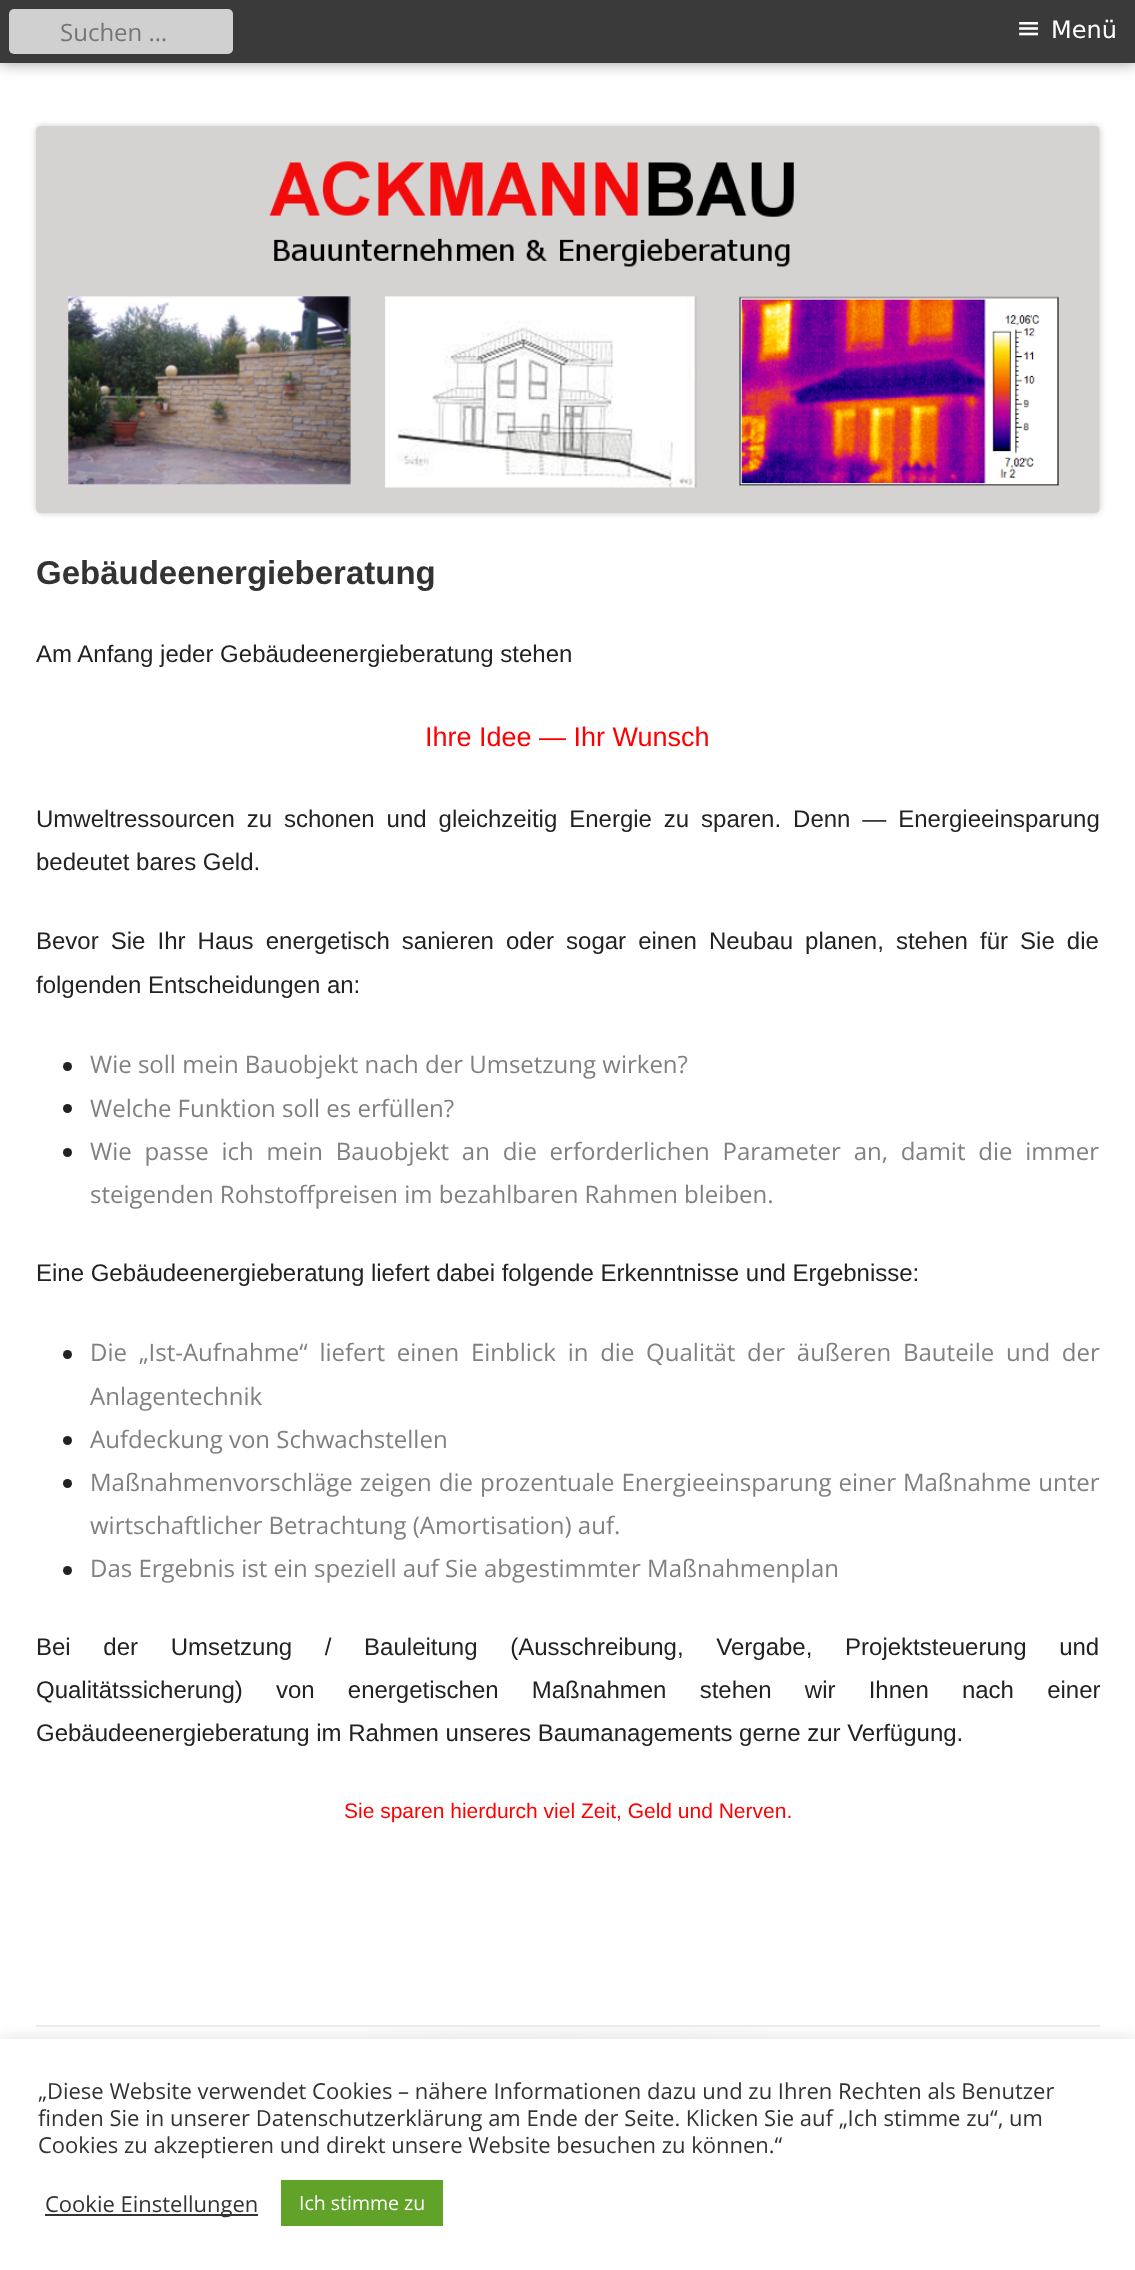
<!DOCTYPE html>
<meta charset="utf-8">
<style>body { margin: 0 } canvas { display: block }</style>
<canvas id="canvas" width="1135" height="2270"></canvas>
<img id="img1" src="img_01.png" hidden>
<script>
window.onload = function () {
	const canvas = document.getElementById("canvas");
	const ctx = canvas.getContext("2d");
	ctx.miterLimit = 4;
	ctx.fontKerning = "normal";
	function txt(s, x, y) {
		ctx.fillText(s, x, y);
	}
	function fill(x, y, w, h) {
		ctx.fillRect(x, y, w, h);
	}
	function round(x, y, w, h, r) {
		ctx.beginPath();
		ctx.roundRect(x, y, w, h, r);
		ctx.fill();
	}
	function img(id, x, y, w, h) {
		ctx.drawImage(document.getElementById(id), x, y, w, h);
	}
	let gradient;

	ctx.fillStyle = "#FFFFFF";
	fill(0, 0, 1135, 2270);
	ctx.fillStyle = "rgba(0, 0, 0, 0.4)";
	ctx.filter = "blur(7.5px)";
	ctx.beginPath();
	ctx.rect(0, 0, 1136, 63);
	ctx.fill();
	ctx.filter = "none";
	ctx.fillStyle = "#3A3A3A";
	fill(0, 0, 1135, 63);
	ctx.fillStyle = "#D0D0D0";
	round(9, 9, 224, 45, 5);
	ctx.fillStyle = "rgba(0, 0, 0, 0.2)";
	ctx.filter = "blur(3px)";
	ctx.beginPath();
	ctx.roundRect(36, 126, 1064, 387, 5);
	ctx.fill();
	ctx.filter = "none";
	img("img1", 36, 126, 1064, 387);
	ctx.fillStyle = "#222222";
	ctx.beginPath();
	ctx.arc(67.5, 1066.5, 4.5, 0, Math.PI * 2);
	ctx.fill();
	ctx.beginPath();
	ctx.arc(67.5, 1108.5, 4.5, 0, Math.PI * 2);
	ctx.fill();
	ctx.beginPath();
	ctx.arc(67.5, 1152.5, 4.5, 0, Math.PI * 2);
	ctx.fill();
	ctx.beginPath();
	ctx.arc(67.5, 1354.5, 4.5, 0, Math.PI * 2);
	ctx.fill();
	ctx.beginPath();
	ctx.arc(67.5, 1440.5, 4.5, 0, Math.PI * 2);
	ctx.fill();
	ctx.beginPath();
	ctx.arc(67.5, 1483.5, 4.5, 0, Math.PI * 2);
	ctx.fill();
	ctx.beginPath();
	ctx.arc(67.5, 1570.5, 4.5, 0, Math.PI * 2);
	ctx.fill();
	gradient = ctx.createRadialGradient(568, 2027, 0, 568, 2027, 532);
	gradient.addColorStop(0, "#FBFBFB");
	gradient.addColorStop(1, "#FFFFFF");
	ctx.fillStyle = gradient;
	fill(368, 2027, 400, 12);
	ctx.fillStyle = "#EDEDED";
	fill(36, 2025, 1064, 2);
	ctx.fillStyle = "rgba(172, 171, 171, 0.3)";
	ctx.filter = "blur(7.5px)";
	ctx.beginPath();
	ctx.rect(0, 2037, 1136, 233);
	ctx.fill();
	ctx.filter = "none";
	ctx.fillStyle = "#FFFFFF";
	fill(0, 2039, 1135, 231);
	ctx.fillStyle = "#333333";
	fill(45, 2214, 213, 2);
	ctx.fillStyle = "#61A229";
	fill(281, 2180, 162, 46);
	ctx.font = "24px Open Sans";
	ctx.fillStyle = "#757575";
	txt("Suchen …", 60, 41);
	ctx.font = "30px DejaVu Sans";
	ctx.fillStyle = "#FFFFFF";
	txt("≡", 1016, 38);
	ctx.font = "24px DejaVu Sans";
	txt("Menü", 1051, 38);
	ctx.font = "bold 33px Liberation Sans";
	ctx.fillStyle = "#333333";
	txt("Gebäudeenergieberatung", 36, 584);
	ctx.font = "24px Liberation Sans";
	ctx.fillStyle = "#222222";
	txt("Am Anfang jeder Gebäudeenergieberatung stehen", 36, 662);
	ctx.font = "27px Liberation Sans";
	ctx.fillStyle = "#FF0000";
	txt("Ihre Idee — Ihr Wunsch", 425, 746);
	ctx.wordSpacing = "5.25px";
	ctx.font = "24px Liberation Sans";
	ctx.fillStyle = "#222222";
	txt("Umweltressourcen zu schonen und gleichzeitig Energie zu sparen. Denn — Energieeinsparung", 36, 827);
	ctx.wordSpacing = "0px";
	txt("bedeutet bares Geld.", 36, 870);
	ctx.wordSpacing = "5.4px";
	txt("Bevor Sie Ihr Haus energetisch sanieren oder sogar einen Neubau planen, stehen für Sie die", 36, 949);
	ctx.wordSpacing = "0px";
	txt("folgenden Entscheidungen an:", 36, 993);
	ctx.font = "24px Open Sans";
	ctx.fillStyle = "#808080";
	txt("Wie soll mein Bauobjekt nach der Umsetzung wirken?", 90, 1073);
	txt("Welche Funktion soll es erfüllen?", 90, 1117);
	ctx.wordSpacing = "6.5px";
	txt("Wie passe ich mein Bauobjekt an die erforderlichen Parameter an, damit die immer", 90, 1160);
	ctx.wordSpacing = "0px";
	txt("steigenden Rohstoffpreisen im bezahlbaren Rahmen bleiben.", 90, 1203);
	ctx.font = "24px Liberation Sans";
	ctx.fillStyle = "#222222";
	txt("Eine Gebäudeenergieberatung liefert dabei folgende Erkenntnisse und Ergebnisse:", 36, 1281);
	ctx.wordSpacing = "5.5px";
	ctx.font = "24px Open Sans";
	ctx.fillStyle = "#808080";
	txt("Die „Ist-Aufnahme“ liefert einen Einblick in die Qualität der äußeren Bauteile und der", 90, 1361);
	ctx.wordSpacing = "0px";
	txt("Anlagentechnik", 90, 1405);
	txt("Aufdeckung von Schwachstellen", 90, 1448);
	ctx.wordSpacing = "0.75px";
	txt("Maßnahmenvorschläge zeigen die prozentuale Energieeinsparung einer Maßnahme unter", 90, 1491);
	ctx.wordSpacing = "0px";
	txt("wirtschaftlicher Betrachtung (Amortisation) auf.", 90, 1534);
	txt("Das Ergebnis ist ein speziell auf Sie abgestimmter Maßnahmenplan", 90, 1577);
	ctx.wordSpacing = "26px";
	ctx.font = "24px Liberation Sans";
	ctx.fillStyle = "#222222";
	txt("Bei der Umsetzung / Bauleitung (Ausschreibung, Vergabe, Projektsteuerung und", 36, 1655);
	ctx.wordSpacing = "26.5px";
	txt("Qualitätssicherung) von energetischen Maßnahmen stehen wir Ihnen nach einer", 36, 1698);
	ctx.wordSpacing = "0px";
	txt("Gebäudeenergieberatung im Rahmen unseres Baumanagements gerne zur Verfügung.", 36, 1741);
	ctx.font = "21px Liberation Sans";
	ctx.fillStyle = "#FF0000";
	txt("Sie sparen hierdurch viel Zeit, Geld und Nerven.", 344, 1818);
	ctx.font = "22px Open Sans";
	ctx.fillStyle = "#333333";
	txt("„Diese Website verwendet Cookies – nähere Informationen dazu und zu Ihren Rechten als Benutzer", 38, 2099);
	txt("finden Sie in unserer Datenschutzerklärung am Ende der Seite. Klicken Sie auf „Ich stimme zu“, um", 38, 2126);
	txt("Cookies zu akzeptieren und direkt unsere Website besuchen zu können.“", 38, 2153);
	txt("Cookie Einstellungen", 45, 2212);
	ctx.font = "19.5px Open Sans";
	ctx.fillStyle = "#FFFFFF";
	txt("Ich stimme zu", 299, 2210);
};
</script>
